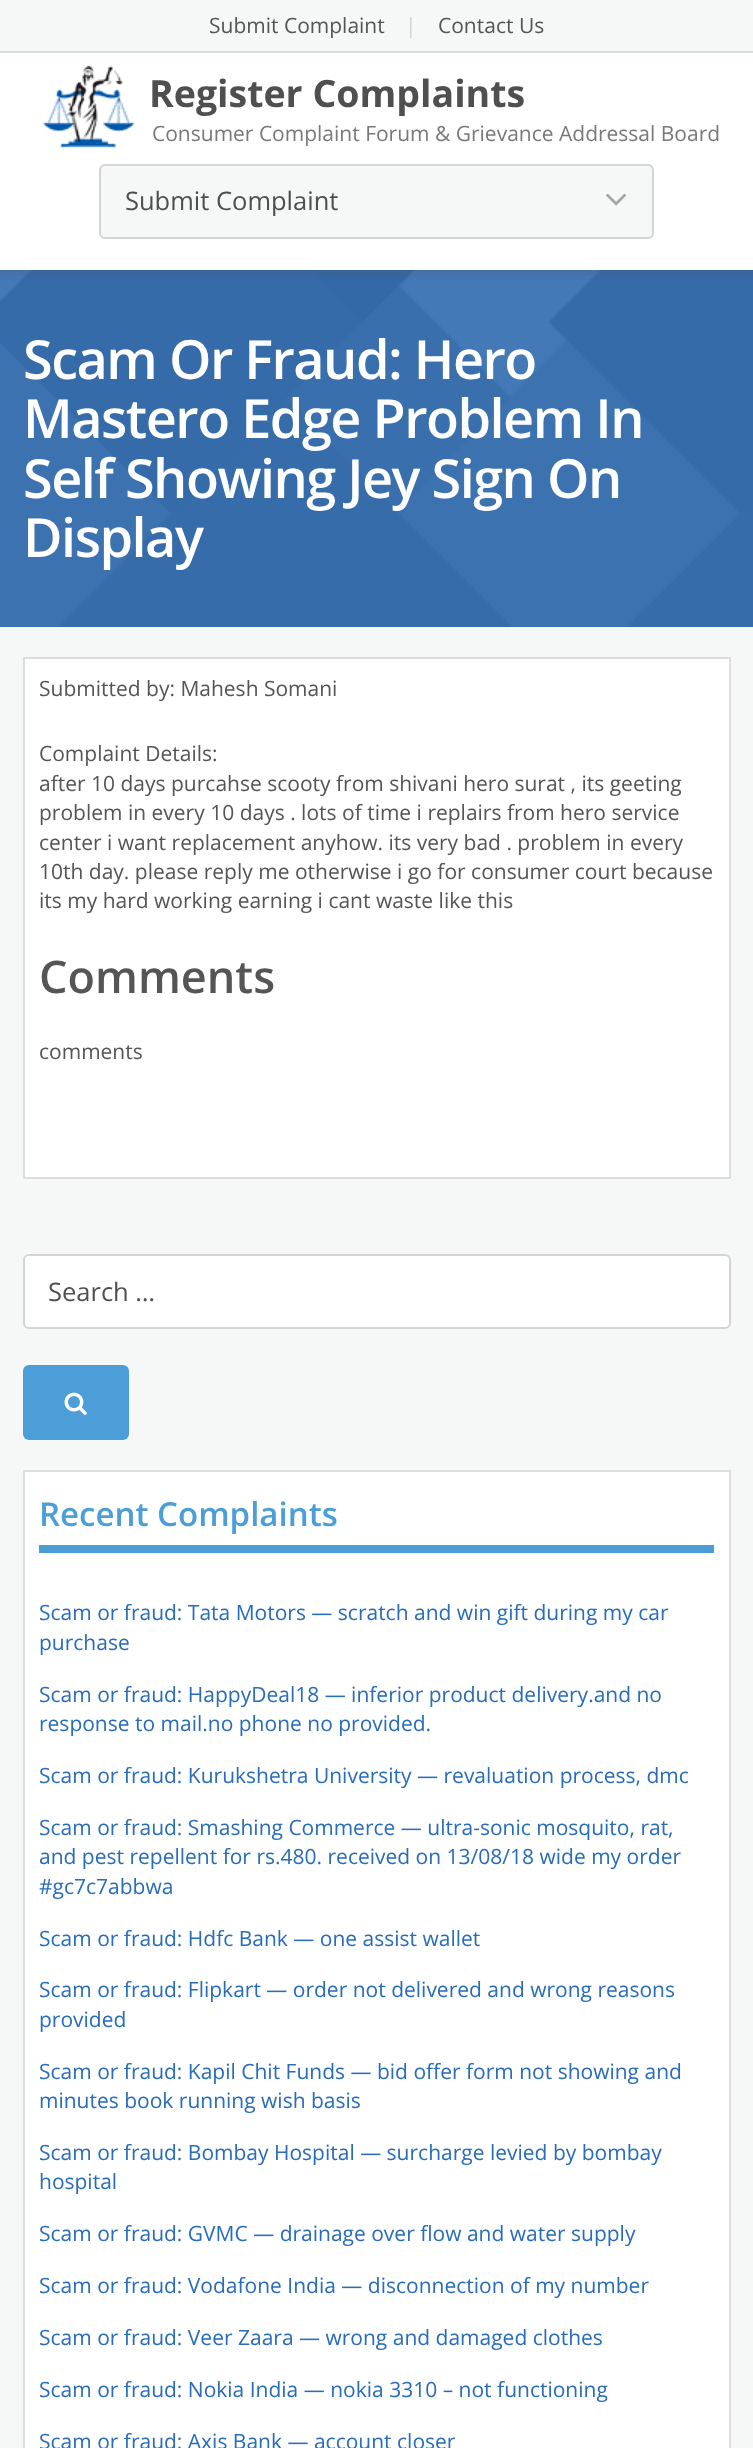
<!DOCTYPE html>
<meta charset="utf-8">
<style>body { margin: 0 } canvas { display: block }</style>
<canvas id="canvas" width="753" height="2448"></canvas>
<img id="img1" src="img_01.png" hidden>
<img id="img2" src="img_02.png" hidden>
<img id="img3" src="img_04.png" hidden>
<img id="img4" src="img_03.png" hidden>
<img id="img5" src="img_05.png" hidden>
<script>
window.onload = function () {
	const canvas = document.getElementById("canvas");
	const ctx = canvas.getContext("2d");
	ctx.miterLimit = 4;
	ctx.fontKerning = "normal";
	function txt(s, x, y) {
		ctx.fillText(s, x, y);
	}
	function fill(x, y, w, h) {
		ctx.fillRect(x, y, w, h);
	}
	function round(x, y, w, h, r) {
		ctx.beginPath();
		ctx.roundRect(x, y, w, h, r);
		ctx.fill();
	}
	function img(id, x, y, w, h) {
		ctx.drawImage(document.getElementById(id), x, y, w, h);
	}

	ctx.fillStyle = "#FFFFFF";
	fill(0, 0, 753, 2448);
	ctx.fillStyle = "#F6F7F7";
	fill(0, 0, 753, 51);
	ctx.fillStyle = "#D9DDE0";
	fill(0, 51, 753, 2);
	img("img1", 42, 65, 94, 83);
	ctx.fillStyle = "#F6F7F7";
	round(99, 164, 555, 75, 6);
	img("img2", 606, 193, 20, 13);
	ctx.beginPath();
	ctx.roundRect(100, 165, 553, 73, 5);
	ctx.strokeStyle = "#D4D4D4";
	ctx.lineWidth = 2;
	ctx.stroke();
	ctx.fillStyle = "#286CBA";
	fill(0, 270, 753, 357);
	img("img3", 0, 270, 753, 357);
	img("img4", 0, 270, 753, 10);
	ctx.fillStyle = "#F6F7F7";
	fill(0, 627, 753, 1821);
	ctx.fillStyle = "#FFFFFF";
	ctx.beginPath();
	ctx.rect(24, 658, 706, 520);
	ctx.fill();
	ctx.strokeStyle = "#DDDDDD";
	ctx.stroke();
	ctx.beginPath();
	ctx.roundRect(24, 1255, 706, 73, 5);
	ctx.fill();
	ctx.strokeStyle = "#D4D4D4";
	ctx.stroke();
	ctx.fillStyle = "#4C9ED9";
	round(23, 1365, 106, 75, 6);
	img("img5", 64, 1392, 23, 23);
	ctx.fillStyle = "#FFFFFF";
	ctx.beginPath();
	ctx.rect(24, 1471, 706, 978);
	ctx.fill();
	ctx.strokeStyle = "#DDDDDD";
	ctx.stroke();
	ctx.fillStyle = "#4C9ED9";
	fill(39, 1545, 675, 8);
	ctx.font = "21px Open Sans";
	ctx.fillStyle = "#555555";
	txt("Submit Complaint", 209, 33);
	ctx.fillStyle = "#CFD3D7";
	txt("|", 405, 33);
	ctx.fillStyle = "#555555";
	txt("Contact Us", 438, 33);
	ctx.font = "bold 37.5px Open Sans";
	ctx.fillStyle = "#4F4F4F";
	txt("Register Complaints", 149, 107);
	ctx.font = "21px Open Sans";
	ctx.fillStyle = "#797979";
	txt("Consumer Complaint Forum & Grievance Addressal Board", 152, 141);
	ctx.font = "25.5px Open Sans";
	ctx.fillStyle = "#4F4F4F";
	txt("Submit Complaint", 125, 210);
	ctx.letterSpacing = "-1.5px";
	ctx.font = "600 54px Open Sans";
	ctx.fillStyle = "#FFFFFF";
	txt("Scam Or Fraud: Hero", 23, 379);
	txt("Mastero Edge Problem In", 23, 438);
	txt("Self Showing Jey Sign On", 23, 498);
	txt("Display", 23, 557);
	ctx.letterSpacing = "0px";
	ctx.font = "21px Open Sans";
	ctx.fillStyle = "#555555";
	txt("Submitted by: Mahesh Somani", 39, 696);
	txt("Complaint Details:", 39, 761);
	txt("after 10 days purcahse scooty from shivani hero surat , its geeting", 39, 791);
	txt("problem in every 10 days . lots of time i replairs from hero service", 39, 820);
	txt("center i want replacement anyhow. its very bad . problem in every", 39, 850);
	txt("10th day. please reply me otherwise i go for consumer court because", 39, 879);
	txt("its my hard working earning i cant waste like this", 39, 908);
	ctx.font = "600 45px Open Sans";
	txt("Comments", 39, 993);
	ctx.font = "21px Open Sans";
	txt("comments", 39, 1059);
	ctx.font = "25.5px Open Sans";
	ctx.fillStyle = "#4F4F4F";
	txt("Search …", 48, 1301);
	ctx.font = "600 33px Open Sans";
	ctx.fillStyle = "#4C9ED9";
	txt("Recent Complaints", 39, 1526);
	ctx.font = "21px Open Sans";
	ctx.fillStyle = "#286CBA";
	txt("Scam or fraud: Tata Motors — scratch and win gift during my car", 39, 1620);
	txt("purchase", 39, 1650);
	txt("Scam or fraud: HappyDeal18 — inferior product delivery.and no", 39, 1702);
	txt("response to mail.no phone no provided.", 39, 1731);
	txt("Scam or fraud: Kurukshetra University — revaluation process, dmc", 39, 1783);
	txt("Scam or fraud: Smashing Commerce — ultra-sonic mosquito, rat,", 39, 1835);
	txt("and pest repellent for rs.480. received on 13/08/18 wide my order", 39, 1864);
	txt("#gc7c7abbwa", 39, 1894);
	txt("Scam or fraud: Hdfc Bank — one assist wallet", 39, 1946);
	txt("Scam or fraud: Flipkart — order not delivered and wrong reasons", 39, 1997);
	txt("provided", 39, 2027);
	txt("Scam or fraud: Kapil Chit Funds — bid offer form not showing and", 39, 2079);
	txt("minutes book running wish basis", 39, 2108);
	txt("Scam or fraud: Bombay Hospital — surcharge levied by bombay", 39, 2160);
	txt("hospital", 39, 2189);
	txt("Scam or fraud: GVMC — drainage over flow and water supply", 39, 2241);
	txt("Scam or fraud: Vodafone India — disconnection of my number", 39, 2293);
	txt("Scam or fraud: Veer Zaara — wrong and damaged clothes", 39, 2345);
	txt("Scam or fraud: Nokia India — nokia 3310 – not functioning", 39, 2397);
	txt("Scam or fraud: Axis Bank — account closer", 39, 2449);
};
</script>
